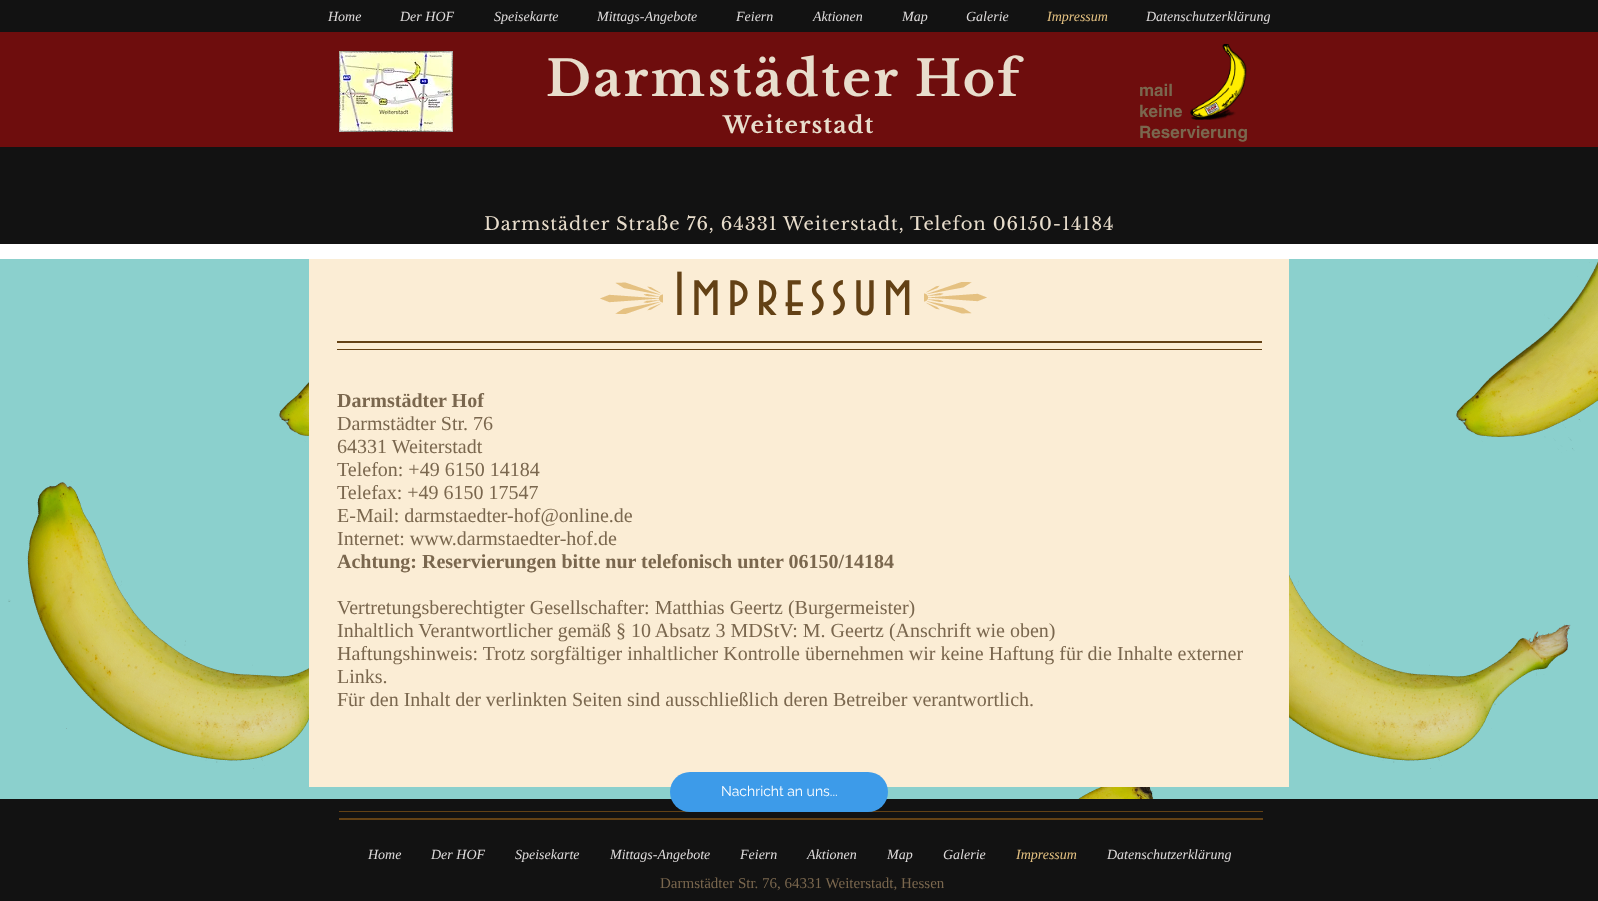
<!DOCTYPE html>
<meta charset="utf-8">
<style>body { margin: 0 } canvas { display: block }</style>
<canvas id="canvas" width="1598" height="901"></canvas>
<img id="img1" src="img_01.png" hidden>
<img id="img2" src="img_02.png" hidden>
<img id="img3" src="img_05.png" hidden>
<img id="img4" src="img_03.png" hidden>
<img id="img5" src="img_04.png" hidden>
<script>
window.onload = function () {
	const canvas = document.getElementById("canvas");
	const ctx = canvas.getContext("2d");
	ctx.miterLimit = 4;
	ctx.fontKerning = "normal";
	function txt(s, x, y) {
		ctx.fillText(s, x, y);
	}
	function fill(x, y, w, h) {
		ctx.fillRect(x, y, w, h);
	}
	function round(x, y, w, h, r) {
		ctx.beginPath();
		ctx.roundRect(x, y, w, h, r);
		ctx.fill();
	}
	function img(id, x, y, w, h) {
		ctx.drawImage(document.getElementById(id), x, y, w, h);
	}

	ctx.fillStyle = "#8BD0CD";
	fill(0, 0, 1598, 901);
	ctx.fillStyle = "#121212";
	fill(0, 0, 1598, 244);
	ctx.fillStyle = "#FFFFFF";
	fill(0, 244, 1598, 15);
	ctx.fillStyle = "#6E0D0D";
	fill(0, 32, 1598, 115);
	img("img1", 339, 51, 114, 81);
	img("img2", 1190, 44, 57, 76);
	img("img3", 8, 261, 1590, 538);
	ctx.fillStyle = "#FBEDD5";
	fill(309, 259, 980, 528);
	img("img4", 600, 282, 63, 32);
	img("img5", 924, 282, 63, 32);
	ctx.fillStyle = "#634115";
	fill(337, 341, 925, 2);
	fill(337, 349, 925, 1);
	ctx.fillStyle = "#121212";
	fill(0, 799, 1598, 102);
	ctx.fillStyle = "#634115";
	fill(339, 811, 924, 1);
	ctx.fillStyle = "#3D9BE9";
	round(670, 772, 218, 40, 20);
	ctx.fillStyle = "#634115";
	fill(339, 818, 924, 2);
	ctx.font = "italic 14px Liberation Serif";
	ctx.fillStyle = "#DFDCDC";
	txt("Home", 328, 21);
	txt("Der HOF", 400, 21);
	txt("Speisekarte", 494, 21);
	txt("Mittags-Angebote", 597, 21);
	txt("Feiern", 736, 21);
	txt("Aktionen", 813, 21);
	txt("Map", 902, 21);
	txt("Galerie", 966, 21);
	ctx.fillStyle = "#E5C282";
	txt("Impressum", 1047, 21);
	ctx.fillStyle = "#DFDCDC";
	txt("Datenschutzerklärung", 1146, 21);
	ctx.letterSpacing = "2.5px";
	ctx.font = "bold 49px Libre Baskerville";
	ctx.fillStyle = "#E8DDCC";
	txt("Darmstädter Hof", 546, 96);
	ctx.letterSpacing = "1.1px";
	ctx.font = "bold 23px Libre Baskerville";
	txt("Weiterstadt", 723, 133);
	ctx.letterSpacing = "0px";
	ctx.font = "bold 17px helvetica";
	ctx.fillStyle = "#7A674E";
	txt("mail", 1139, 96);
	txt("keine", 1139, 117);
	txt("Reservierung", 1139, 138);
	ctx.letterSpacing = "0.9px";
	ctx.font = "18px Libre Baskerville";
	ctx.fillStyle = "#E8DDCC";
	txt("Darmstädter Straße 76, 64331 Weiterstadt, Telefon 06150-14184", 484, 230);
	ctx.letterSpacing = "6.5px";
	ctx.font = "65px 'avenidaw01'";
	ctx.fillStyle = "#634115";
	txt("Impressum", 674, 315);
	ctx.letterSpacing = "0px";
	ctx.font = "bold 20px Liberation Serif";
	ctx.fillStyle = "#7A674E";
	txt("Darmstädter Hof", 337, 407);
	ctx.font = "20px Liberation Serif";
	txt("Darmstädter Str. 76", 337, 430);
	txt("64331 Weiterstadt", 337, 453);
	txt("Telefon: +49 6150 14184", 337, 476);
	txt("Telefax: +49 6150 17547", 337, 499);
	txt("E-Mail: darmstaedter-hof@online.de", 337, 522);
	txt("Internet: www.darmstaedter-hof.de", 337, 545);
	ctx.font = "bold 20px Liberation Serif";
	txt("Achtung: Reservierungen bitte nur telefonisch unter 06150/14184", 337, 568);
	ctx.font = "20px Liberation Serif";
	txt("Vertretungsberechtigter Gesellschafter: Matthias Geertz (Burgermeister)", 337, 614);
	txt("Inhaltlich Verantwortlicher gemäß § 10 Absatz 3 MDStV: M. Geertz (Anschrift wie oben)", 337, 637);
	txt("Haftungshinweis: Trotz sorgfältiger inhaltlicher Kontrolle übernehmen wir keine Haftung für die Inhalte externer", 337, 660);
	txt("Links.", 337, 683);
	txt("Für den Inhalt der verlinkten Seiten sind ausschließlich deren Betreiber verantwortlich.", 337, 706);
	ctx.font = "14px Raleway";
	ctx.fillStyle = "#FFFFFF";
	txt("Nachricht an uns...", 721, 796);
	ctx.font = "italic 14px Liberation Serif";
	ctx.fillStyle = "#DFDCDC";
	txt("Home", 368, 859);
	txt("Der HOF", 431, 859);
	txt("Speisekarte", 515, 859);
	txt("Mittags-Angebote", 610, 859);
	txt("Feiern", 740, 859);
	txt("Aktionen", 807, 859);
	txt("Map", 887, 859);
	txt("Galerie", 943, 859);
	ctx.fillStyle = "#E5C282";
	txt("Impressum", 1016, 859);
	ctx.fillStyle = "#DFDCDC";
	txt("Datenschutzerklärung", 1107, 859);
	ctx.font = "15px Liberation Serif";
	ctx.fillStyle = "#7A674E";
	txt("Darmstädter Str. 76, 64331 Weiterstadt, Hessen", 660, 888);
};
</script>
